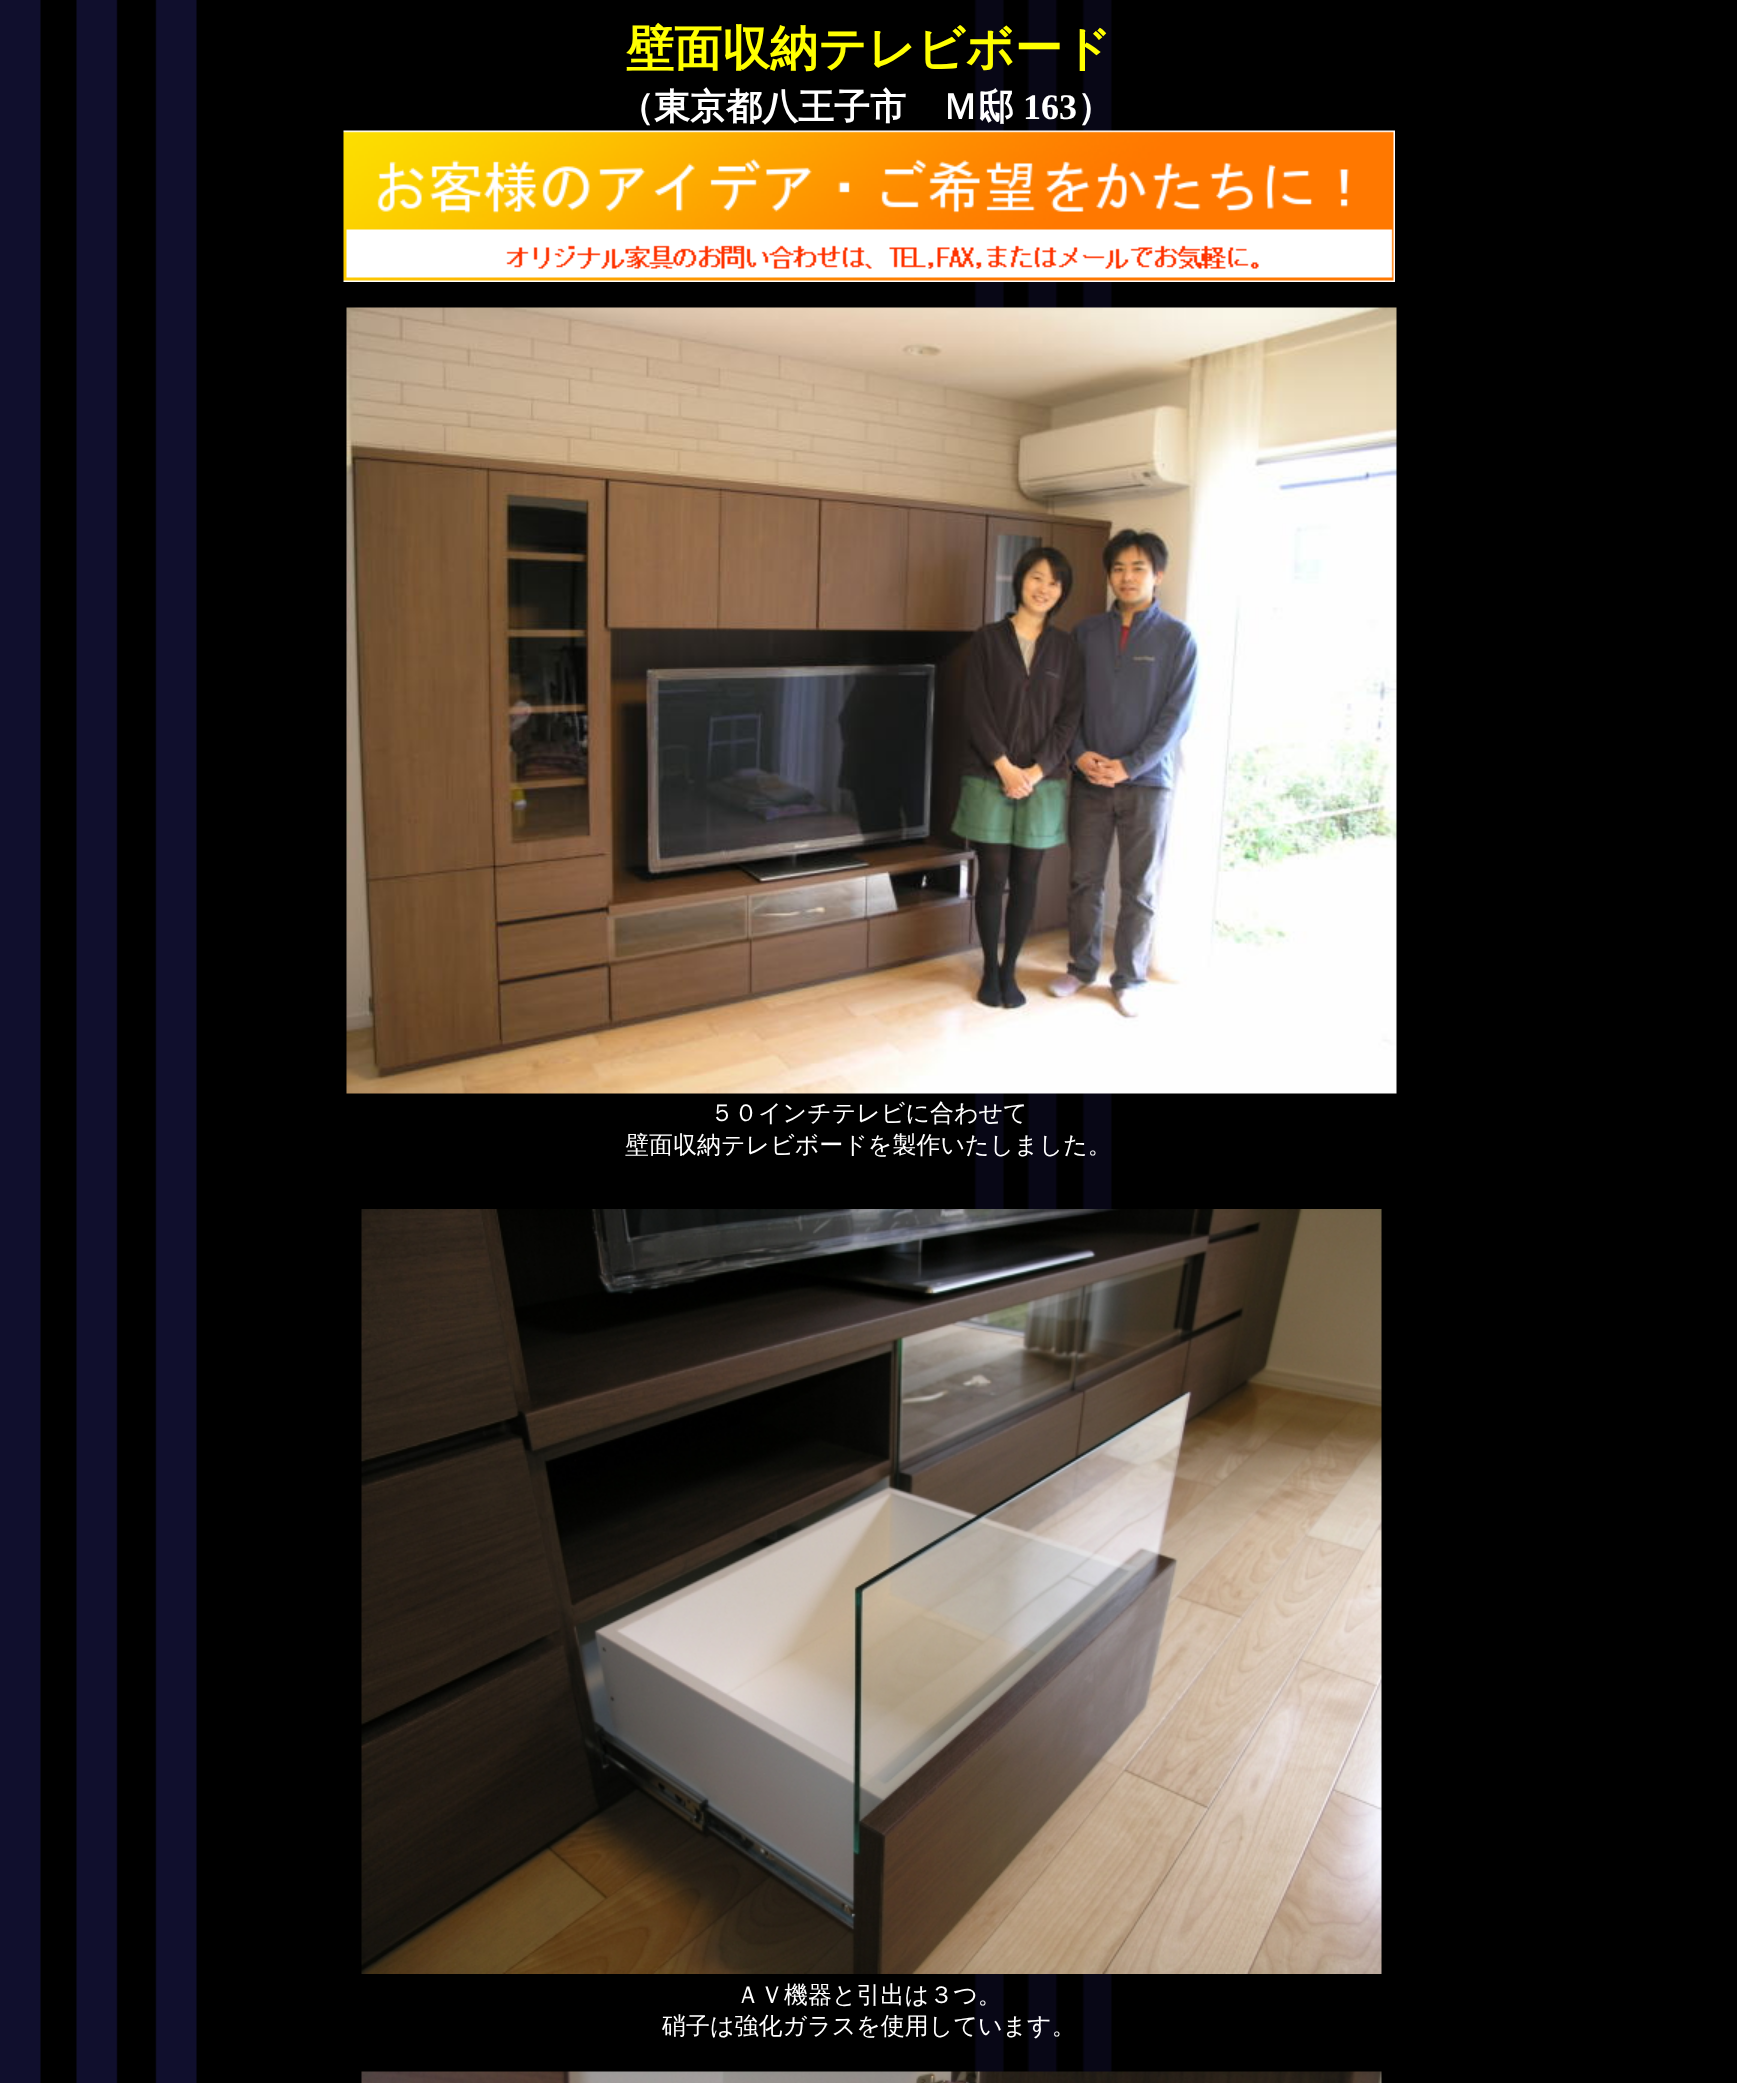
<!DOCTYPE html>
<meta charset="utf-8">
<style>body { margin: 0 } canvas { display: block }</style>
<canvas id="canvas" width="1737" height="2083"></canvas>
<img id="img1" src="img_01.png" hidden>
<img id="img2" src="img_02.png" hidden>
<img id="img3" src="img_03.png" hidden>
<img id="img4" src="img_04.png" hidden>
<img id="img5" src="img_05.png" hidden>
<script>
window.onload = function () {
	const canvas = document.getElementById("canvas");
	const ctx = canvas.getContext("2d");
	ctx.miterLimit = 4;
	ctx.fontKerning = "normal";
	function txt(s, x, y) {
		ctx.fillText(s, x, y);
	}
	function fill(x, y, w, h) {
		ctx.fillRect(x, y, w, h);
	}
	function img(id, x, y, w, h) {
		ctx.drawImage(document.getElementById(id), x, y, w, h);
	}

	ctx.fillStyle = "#FFFFFF";
	fill(0, 0, 1737, 2083);
	img("img1", 0, 0, 1737, 2083);
	img("img2", 343, 130, 1052, 152);
	img("img3", 346, 307, 1051, 787);
	img("img4", 361, 1209, 1021, 765);
	img("img5", 361, 2071, 1021, 12);
	ctx.font = "bold 48px WenQuanYi Zen Hei";
	ctx.fillStyle = "#FFFF00";
	txt("壁面収納テレビボード", 626, 65);
	ctx.font = "bold 36px WenQuanYi Zen Hei";
	ctx.fillStyle = "#FFFFFF";
	txt("（東京都八王子市　Ｍ邸", 618, 119);
	ctx.font = "bold 36px Liberation Serif";
	txt("163", 1023, 119);
	ctx.font = "bold 36px WenQuanYi Zen Hei";
	txt("）", 1077, 119);
	ctx.font = "500 24px WenQuanYi Zen Hei";
	txt("５０インチテレビに合わせて", 710, 1121);
	txt("壁面収納テレビボードを製作いたしました。", 625, 1153);
	txt("ＡＶ機器と引出は３つ。", 736, 2003);
	txt("硝子は強化ガラスを使用しています。", 662, 2034);
};
</script>
